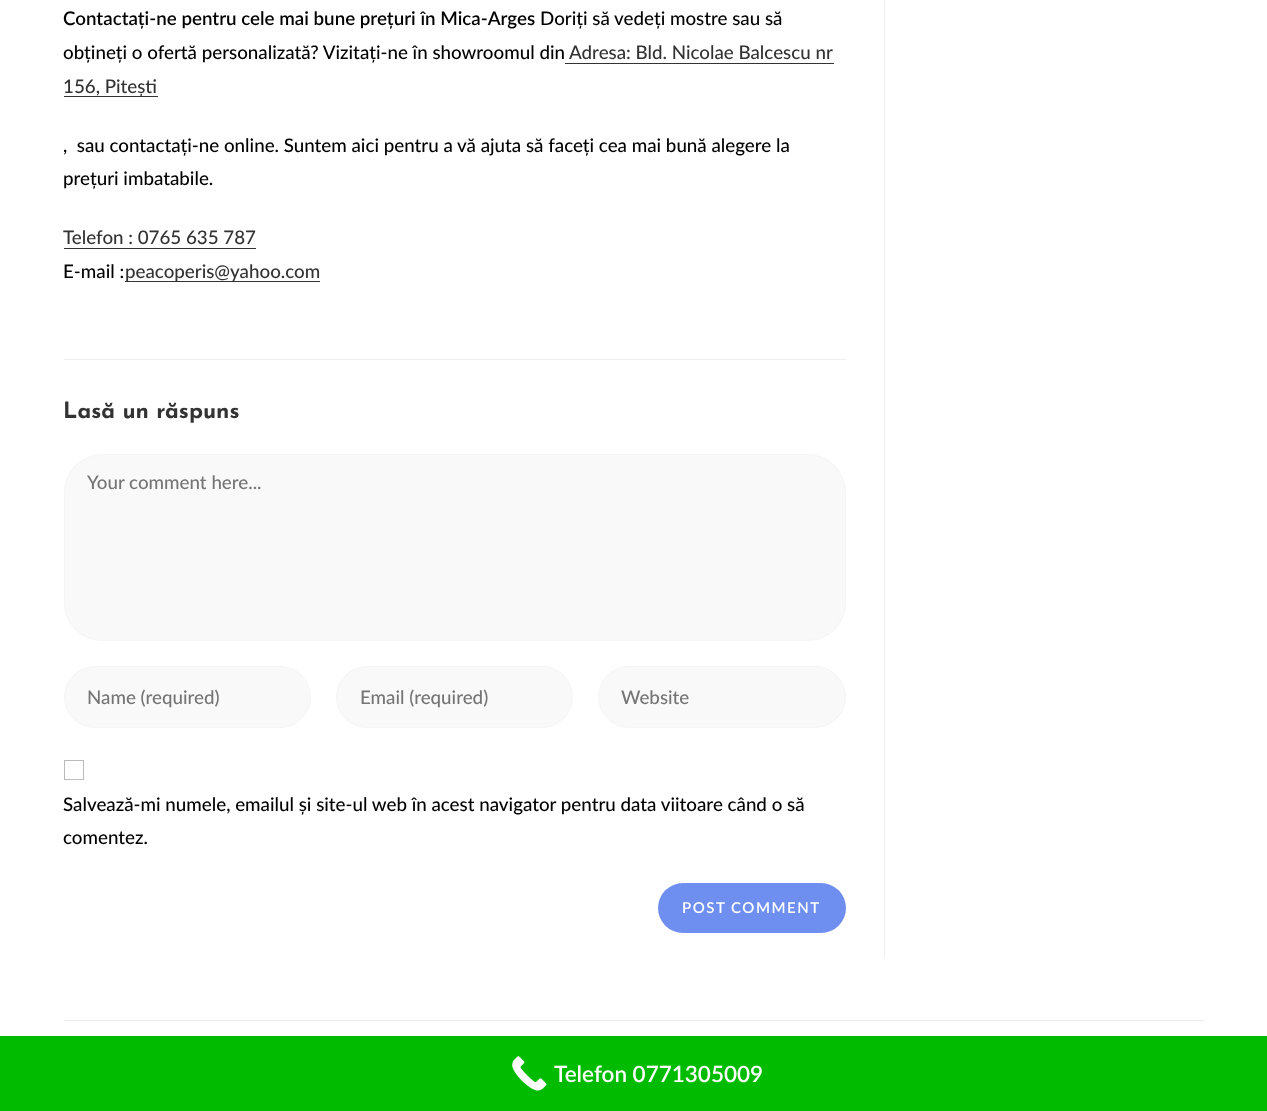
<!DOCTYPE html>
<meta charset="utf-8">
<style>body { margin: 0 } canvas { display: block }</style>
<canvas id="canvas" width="1267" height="1111"></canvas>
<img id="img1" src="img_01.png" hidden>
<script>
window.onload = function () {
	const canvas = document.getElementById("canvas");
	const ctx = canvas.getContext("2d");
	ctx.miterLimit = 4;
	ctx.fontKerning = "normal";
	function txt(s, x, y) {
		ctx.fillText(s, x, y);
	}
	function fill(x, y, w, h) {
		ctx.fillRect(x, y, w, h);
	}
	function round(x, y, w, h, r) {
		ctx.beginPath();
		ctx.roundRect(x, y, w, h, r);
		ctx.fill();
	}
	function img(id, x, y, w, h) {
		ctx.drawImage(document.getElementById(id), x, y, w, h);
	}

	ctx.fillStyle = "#FFFFFF";
	fill(0, 0, 1267, 1111);
	ctx.fillStyle = "#EEEEEE";
	fill(884, 0, 1, 958);
	ctx.fillStyle = "#333333";
	fill(565, 63, 269, 1);
	fill(64, 96, 94, 1);
	fill(64, 248, 192, 1);
	fill(125, 281, 195, 1);
	ctx.fillStyle = "#EEEEEE";
	fill(64, 359, 782, 1);
	ctx.fillStyle = "#F9F9F9";
	ctx.beginPath();
	ctx.roundRect(64.5, 454.5, 781, 186, 37.5);
	ctx.fill();
	ctx.strokeStyle = "#F5F5F5";
	ctx.stroke();
	ctx.beginPath();
	ctx.roundRect(64.5, 666.5, 246, 61, 30.5);
	ctx.fill();
	ctx.stroke();
	ctx.beginPath();
	ctx.roundRect(336.5, 666.5, 236, 61, 30.5);
	ctx.fill();
	ctx.stroke();
	ctx.beginPath();
	ctx.roundRect(598.5, 666.5, 247, 61, 30.5);
	ctx.fill();
	ctx.stroke();
	ctx.strokeStyle = "#BBBBBB";
	ctx.strokeRect(64.5, 760.5, 19, 19);
	ctx.fillStyle = "#6E8FEF";
	round(658, 883, 188, 50, 25);
	ctx.fillStyle = "#EAEAEA";
	fill(64, 1020, 1140, 1);
	ctx.fillStyle = "#00BB00";
	fill(0, 1036, 1267, 75);
	img("img1", 512, 1056, 35, 35);
	ctx.font = "600 18.75px Lato";
	ctx.fillStyle = "#000000";
	txt("Contactați-ne pentru cele mai bune prețuri în Mica-Arges", 63, 25);
	ctx.font = "500 18.75px Lato";
	txt("Doriți să vedeți mostre sau să", 540, 25);
	txt("obțineți o ofertă personalizată? Vizitați-ne în showroomul din", 63, 59);
	ctx.fillStyle = "#333333";
	txt("Adresa: Bld. Nicolae Balcescu nr", 569, 59);
	txt("156, Pitești", 63, 93);
	ctx.fillStyle = "#000000";
	txt(",  sau contactați-ne online. Suntem aici pentru a vă ajuta să faceți cea mai bună alegere la", 63, 152);
	txt("prețuri imbatabile.", 63, 185);
	ctx.fillStyle = "#333333";
	txt("Telefon : 0765 635 787", 63, 244);
	ctx.fillStyle = "#000000";
	txt("E-mail :", 63, 278);
	ctx.fillStyle = "#333333";
	txt("peacoperis@yahoo.com", 125, 278);
	ctx.font = "bold 22.5px Josefin Sans";
	txt("Lasă un răspuns", 63, 418);
	ctx.font = "500 18.75px Lato";
	ctx.fillStyle = "#757575";
	txt("Your comment here...", 87, 489);
	txt("Name (required)", 87, 704);
	txt("Email (required)", 360, 704);
	txt("Website", 621, 704);
	ctx.fillStyle = "#000000";
	txt("Salvează-mi numele, emailul și site-ul web în acest navigator pentru data viitoare când o să", 63, 811);
	txt("comentez.", 63, 844);
	ctx.letterSpacing = "1.5px";
	ctx.font = "600 15px Lato";
	ctx.fillStyle = "#FFFFFF";
	txt("POST COMMENT", 682, 913);
	ctx.letterSpacing = "0px";
	ctx.font = "600 22.5px Lato";
	txt("Telefon 0771305009", 554, 1082);
};
</script>
